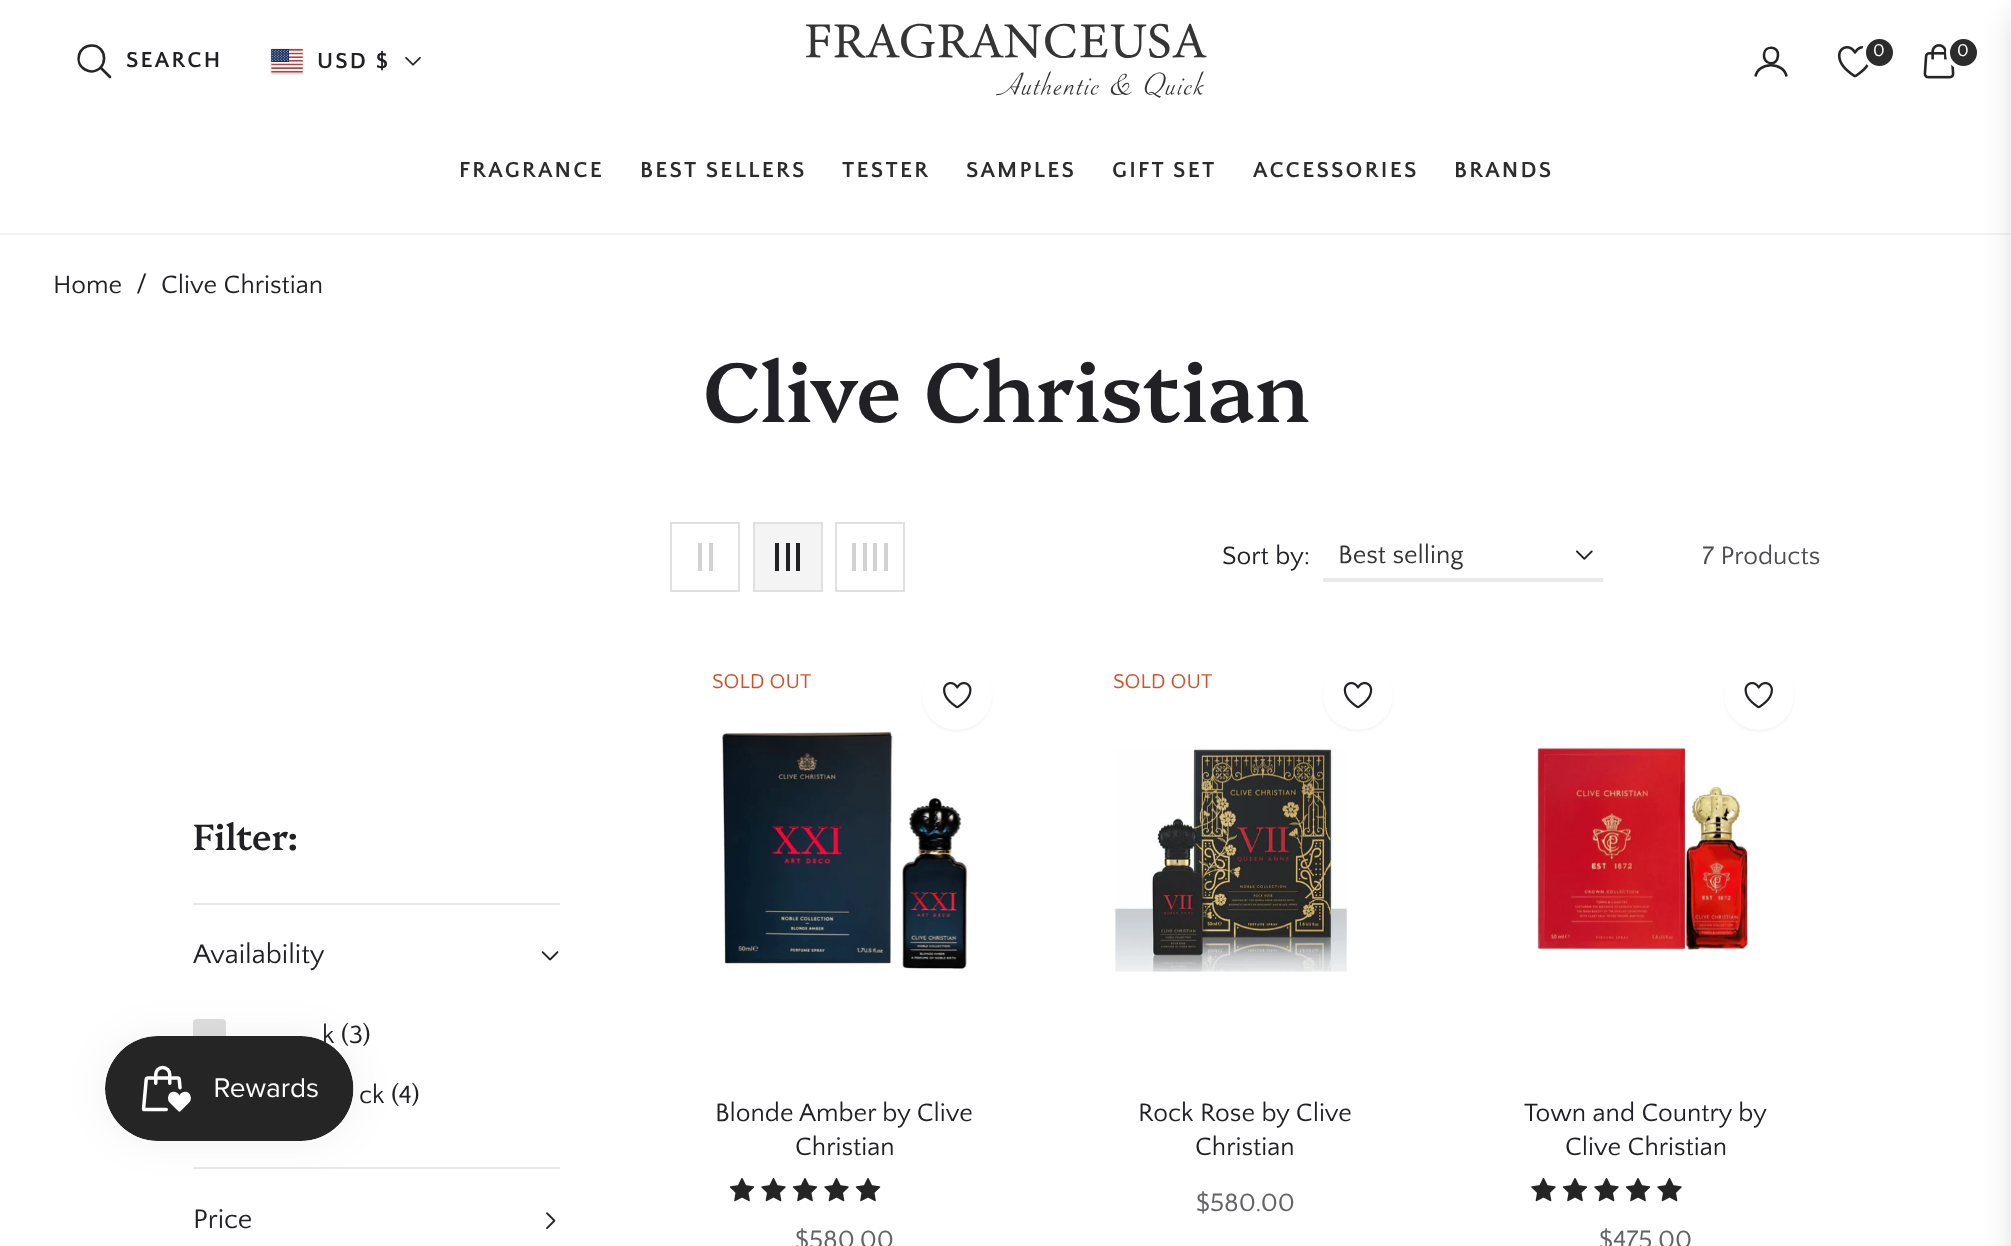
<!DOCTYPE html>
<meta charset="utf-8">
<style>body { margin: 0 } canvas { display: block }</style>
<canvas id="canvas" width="2011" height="1246"></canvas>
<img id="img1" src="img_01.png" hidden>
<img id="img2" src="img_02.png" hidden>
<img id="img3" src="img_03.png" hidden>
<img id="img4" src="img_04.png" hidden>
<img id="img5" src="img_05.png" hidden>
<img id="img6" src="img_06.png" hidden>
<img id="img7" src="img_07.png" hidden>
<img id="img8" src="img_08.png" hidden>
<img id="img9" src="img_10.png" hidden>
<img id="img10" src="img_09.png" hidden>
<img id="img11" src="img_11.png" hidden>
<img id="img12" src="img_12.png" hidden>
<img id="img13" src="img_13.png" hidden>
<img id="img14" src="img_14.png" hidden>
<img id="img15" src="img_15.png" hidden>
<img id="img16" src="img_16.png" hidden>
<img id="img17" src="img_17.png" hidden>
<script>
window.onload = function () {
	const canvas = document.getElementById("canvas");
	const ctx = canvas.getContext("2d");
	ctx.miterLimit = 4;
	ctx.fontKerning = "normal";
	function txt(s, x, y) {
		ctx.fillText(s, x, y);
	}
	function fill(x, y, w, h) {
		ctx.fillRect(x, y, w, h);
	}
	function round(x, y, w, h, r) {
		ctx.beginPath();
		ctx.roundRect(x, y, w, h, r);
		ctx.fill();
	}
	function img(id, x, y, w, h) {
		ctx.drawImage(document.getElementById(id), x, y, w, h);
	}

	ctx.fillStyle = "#FFFFFF";
	fill(0, 0, 2011, 1246);
	ctx.strokeStyle = "#F2F2F2";
	ctx.lineWidth = 2;
	ctx.strokeRect(-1, -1, 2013, 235);
	ctx.beginPath();
	ctx.moveTo(91.5, 45.5);
	ctx.bezierCurveTo(78.5, 45.5, 73.5, 63, 85, 69.5);
	ctx.bezierCurveTo(87, 70.5, 89.5, 71.5, 91.5, 71.5);
	ctx.bezierCurveTo(108.5, 70.5, 108, 45.5, 91.5, 45.5);
	ctx.closePath();
	ctx.strokeStyle = "#252525";
	ctx.lineWidth = 2.6;
	ctx.stroke();
	ctx.beginPath();
	ctx.moveTo(101, 68);
	ctx.lineTo(110, 77);
	ctx.lineCap = "round";
	ctx.stroke();
	ctx.fillStyle = "rgba(0, 0, 0, 0.2)";
	ctx.filter = "blur(1px)";
	ctx.beginPath();
	ctx.rect(271, 49, 32, 25);
	ctx.fill();
	ctx.filter = "none";
	img("img1", 271, 49, 32, 24);
	img("img2", 405, 57, 16, 9);
	img("img3", 806, 23, 401, 75);
	ctx.beginPath();
	ctx.moveTo(1778, 55.5);
	ctx.bezierCurveTo(1777.5, 67, 1762.5, 65, 1764, 54);
	ctx.bezierCurveTo(1765, 45, 1779, 46, 1778, 55.5);
	ctx.closePath();
	ctx.lineJoin = "round";
	ctx.stroke();
	ctx.beginPath();
	ctx.moveTo(1755.5, 76.5);
	ctx.bezierCurveTo(1758, 61.5, 1784, 61.5, 1786.5, 76.5);
	ctx.lineCap = "butt";
	ctx.lineJoin = "miter";
	ctx.stroke();
	img("img4", 1837, 46, 32, 32);
	ctx.fillStyle = "#2C2C2C";
	ctx.beginPath();
	ctx.arc(1879.5, 52.5, 15.5, 0, Math.PI * 2);
	ctx.fill();
	ctx.strokeStyle = "#FFFFFF";
	ctx.lineWidth = 4;
	ctx.stroke();
	img("img5", 1923, 44, 32, 35);
	ctx.beginPath();
	ctx.arc(1963.5, 52.5, 15.5, 0, Math.PI * 2);
	ctx.fill();
	ctx.stroke();
	ctx.fillStyle = "rgba(0, 0, 0, 0.15)";
	ctx.filter = "blur(14px)";
	ctx.beginPath();
	ctx.rect(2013, 14, 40, 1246);
	ctx.fill();
	ctx.filter = "none";
	ctx.strokeStyle = "#E0E0E0";
	ctx.lineWidth = 2;
	ctx.strokeRect(671, 523, 68, 68);
	ctx.fillStyle = "#D2D2D3";
	fill(709, 543, 4, 28);
	fill(698, 543, 4, 28);
	ctx.fillStyle = "#F4F4F4";
	ctx.beginPath();
	ctx.rect(754, 523, 68, 68);
	ctx.fill();
	ctx.stroke();
	ctx.fillStyle = "#202025";
	fill(796, 543, 4, 28);
	fill(786, 543, 4, 28);
	fill(775, 543, 4, 28);
	ctx.strokeRect(836, 523, 68, 68);
	ctx.fillStyle = "#D2D2D3";
	fill(884, 543, 4, 28);
	fill(873, 543, 4, 28);
	fill(863, 543, 4, 28);
	fill(852, 543, 4, 28);
	ctx.fillStyle = "#E9E9E9";
	fill(1323, 578, 280, 4);
	img("img6", 1576, 550, 17, 10);
	fill(193, 903, 367, 2);
	img("img7", 541, 951, 18, 10);
	ctx.fillStyle = "#DEDEDE";
	round(193, 1019, 33, 33, 4);
	ctx.fillStyle = "#E9E9E9";
	fill(193, 1167, 367, 2);
	img("img8", 546, 1212, 10, 17);
	img("img9", 720, 731, 249, 238);
	ctx.fillStyle = "rgba(32, 32, 37, 0.05)";
	ctx.filter = "blur(1px)";
	ctx.beginPath();
	ctx.roundRect(922, 662, 70, 70, 35);
	ctx.fill();
	ctx.filter = "none";
	ctx.fillStyle = "#FFFFFF";
	ctx.beginPath();
	ctx.arc(957, 695, 35, 0, Math.PI * 2);
	ctx.fill();
	img("img10", 943, 682, 29, 27);
	img("img11", 729, 1178, 26, 24);
	img("img12", 761, 1177, 25, 25);
	img("img11", 792, 1178, 26, 24);
	img("img12", 824, 1177, 25, 25);
	img("img11", 855, 1178, 26, 24);
	ctx.fillStyle = "rgba(32, 32, 37, 0.05)";
	ctx.filter = "blur(1px)";
	ctx.beginPath();
	ctx.roundRect(1323, 662, 70, 70, 35);
	ctx.fill();
	ctx.filter = "none";
	ctx.fillStyle = "#FFFFFF";
	ctx.beginPath();
	ctx.arc(1358, 695, 35, 0, Math.PI * 2);
	ctx.fill();
	img("img13", 1343, 682, 30, 27);
	img("img14", 1115, 748, 232, 224);
	ctx.fillStyle = "rgba(32, 32, 37, 0.05)";
	ctx.filter = "blur(1px)";
	ctx.beginPath();
	ctx.roundRect(1724, 662, 70, 70, 35);
	ctx.fill();
	ctx.filter = "none";
	ctx.fillStyle = "#FFFFFF";
	ctx.beginPath();
	ctx.arc(1759, 695, 35, 0, Math.PI * 2);
	ctx.fill();
	img("img15", 1744, 682, 29, 27);
	img("img16", 1536, 744, 213, 209);
	img("img12", 1531, 1177, 25, 25);
	img("img11", 1562, 1178, 26, 24);
	img("img12", 1594, 1177, 25, 25);
	img("img11", 1625, 1178, 26, 24);
	img("img12", 1657, 1177, 25, 25);
	ctx.fillStyle = "rgba(0, 0, 0, 0.05)";
	ctx.filter = "blur(22px)";
	ctx.beginPath();
	ctx.roundRect(105, 1036, 249, 105, 52.5);
	ctx.fill();
	ctx.filter = "none";
	ctx.letterSpacing = "2.25px";
	ctx.font = "bold 22.75px Quattrocento Sans";
	ctx.fillStyle = "#202025";
	txt("SEARCH", 126, 67);
	txt("USD $", 317, 68);
	ctx.font = "18px Quattrocento Sans";
	ctx.fillStyle = "#FFFFFF";
	txt("0", 1873, 56);
	txt("0", 1957, 56);
	ctx.font = "bold 22.75px Quattrocento Sans";
	ctx.fillStyle = "#2C2C2C";
	txt("FRAGRANCE", 459, 177);
	txt("BEST SELLERS", 640, 177);
	txt("TESTER", 842, 177);
	txt("SAMPLES", 966, 177);
	txt("GIFT SET", 1112, 177);
	txt("ACCESSORIES", 1253, 177);
	txt("BRANDS", 1454, 177);
	ctx.letterSpacing = "0px";
	ctx.font = "26.25px Quattrocento Sans";
	ctx.fillStyle = "#202025";
	txt("Home", 53, 293);
	txt("/", 136, 292);
	txt("Clive Christian", 161, 293);
	ctx.font = "500 84px Platypi";
	txt("Clive Christian", 703, 422);
	ctx.font = "26.25px Quattrocento Sans";
	txt("Sort by:", 1222, 564);
	ctx.fillStyle = "#333333";
	txt("Best selling", 1338, 563);
	ctx.fillStyle = "#4D4D51";
	txt("7 Products", 1702, 564);
	ctx.font = "500 36.5px Platypi";
	ctx.fillStyle = "#202025";
	txt("Filter:", 193, 850);
	ctx.font = "28px Quattrocento Sans";
	txt("Availability", 193, 963);
	ctx.font = "26.25px Quattrocento Sans";
	txt("k (3)", 322, 1043);
	txt("ck (4)", 359, 1103);
	ctx.font = "28px Quattrocento Sans";
	txt("Price", 193, 1228);
	ctx.font = "21px Quattrocento Sans";
	ctx.fillStyle = "#D1512D";
	txt("SOLD OUT", 712, 688);
	ctx.font = "26.25px Quattrocento Sans";
	ctx.fillStyle = "#202025";
	txt("Blonde Amber by Clive", 715, 1121);
	txt("Christian", 795, 1155);
	ctx.fillStyle = "#636366";
	txt("$580.00", 795, 1248);
	ctx.font = "21px Quattrocento Sans";
	ctx.fillStyle = "#D1512D";
	txt("SOLD OUT", 1113, 688);
	ctx.font = "26.25px Quattrocento Sans";
	ctx.fillStyle = "#202025";
	txt("Rock Rose by Clive", 1138, 1121);
	txt("Christian", 1195, 1155);
	ctx.fillStyle = "#636366";
	txt("$580.00", 1196, 1211);
	ctx.fillStyle = "#202025";
	txt("Town and Country by", 1524, 1121);
	txt("Clive Christian", 1565, 1155);
	ctx.fillStyle = "#636366";
	txt("$475.00", 1599, 1248);
	img("img17", 105, 1036, 249, 105);
};
</script>
